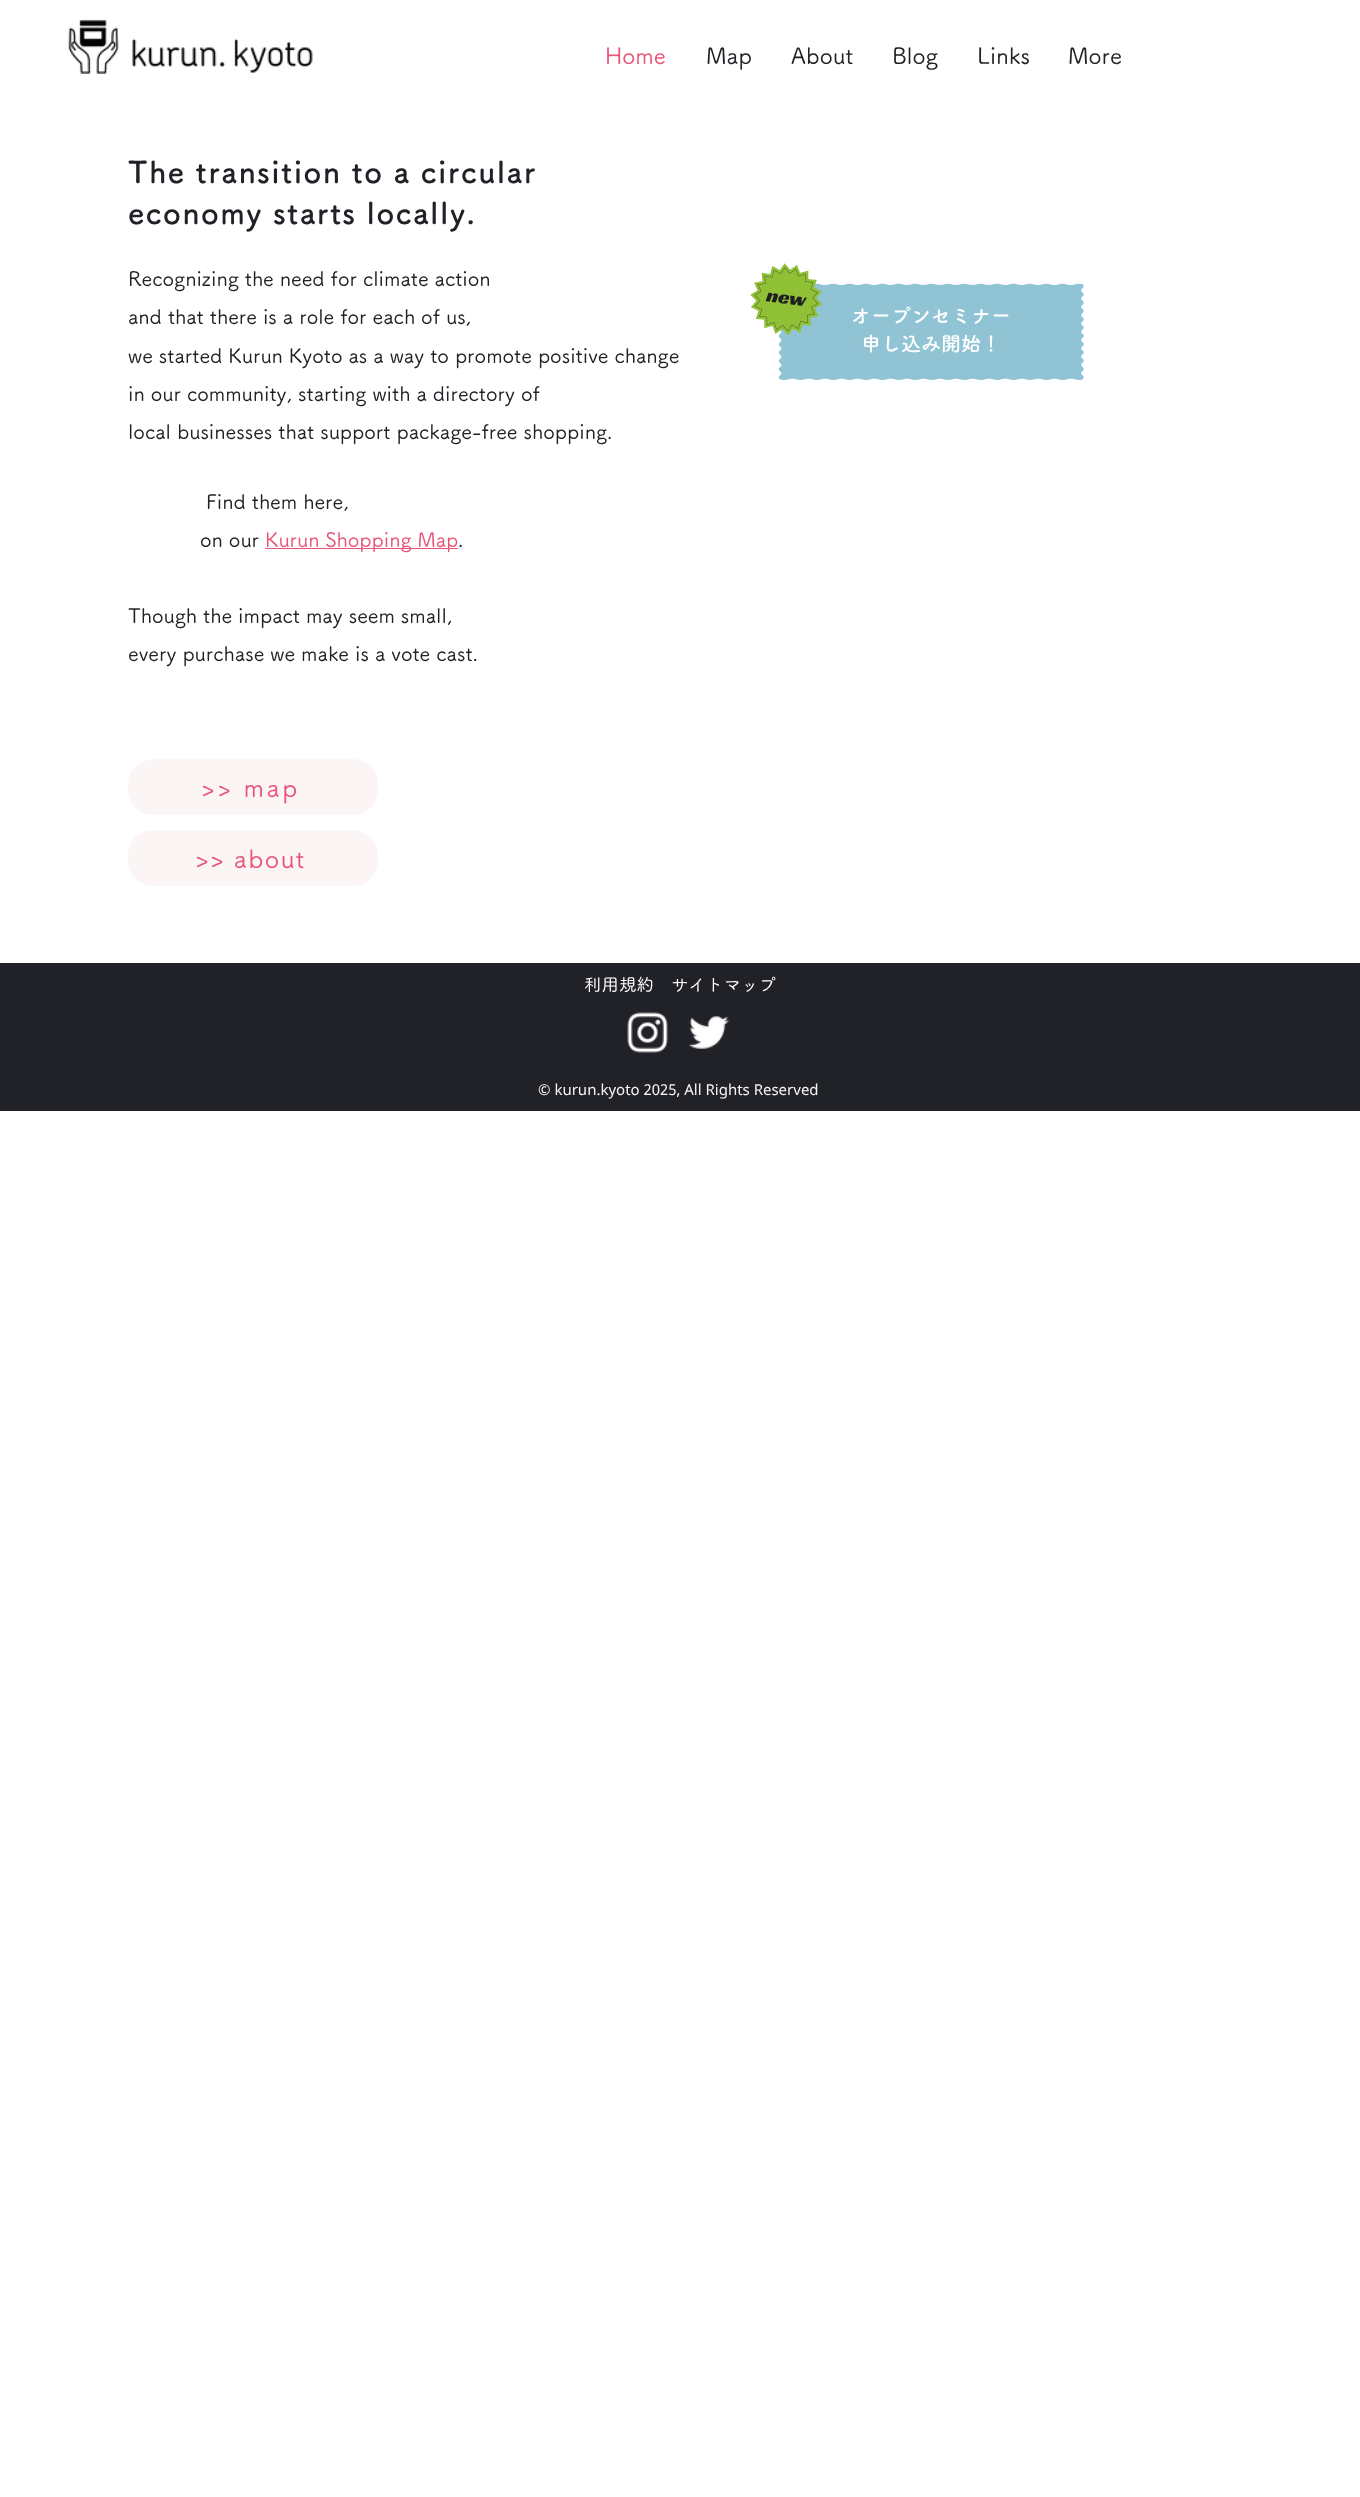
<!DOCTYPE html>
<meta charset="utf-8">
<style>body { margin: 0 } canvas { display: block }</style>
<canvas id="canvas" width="1360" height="2497"></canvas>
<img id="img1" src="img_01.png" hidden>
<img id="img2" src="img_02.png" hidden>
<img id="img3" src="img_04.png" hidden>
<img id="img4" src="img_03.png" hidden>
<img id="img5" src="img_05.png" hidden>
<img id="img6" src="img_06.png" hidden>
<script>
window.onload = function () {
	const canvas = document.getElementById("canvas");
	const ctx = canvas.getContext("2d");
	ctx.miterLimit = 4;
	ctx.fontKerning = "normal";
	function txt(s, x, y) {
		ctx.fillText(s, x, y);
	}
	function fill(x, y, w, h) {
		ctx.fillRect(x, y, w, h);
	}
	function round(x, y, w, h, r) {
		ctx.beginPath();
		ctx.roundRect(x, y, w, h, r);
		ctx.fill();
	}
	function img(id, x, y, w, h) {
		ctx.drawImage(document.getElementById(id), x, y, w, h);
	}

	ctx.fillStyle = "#FFFFFF";
	fill(0, 0, 1360, 2497);
	img("img1", 68, 19, 51, 55);
	img("img2", 132, 38, 181, 36);
	ctx.fillStyle = "#E95477";
	fill(265, 548, 193, 1);
	img("img3", 778, 283, 306, 97);
	img("img4", 750, 263, 72, 73);
	ctx.fillStyle = "#FCF5F6";
	round(128, 759, 250, 56, 25);
	round(128, 830, 250, 56, 25);
	ctx.fillStyle = "#212227";
	fill(0, 963, 1360, 148);
	img("img5", 627, 1012, 41, 41);
	img("img6", 688, 1016, 41, 33);
	ctx.font = "500 22.5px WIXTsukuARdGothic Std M";
	ctx.fillStyle = "#E95477";
	txt("Home", 605, 64);
	ctx.fillStyle = "#212227";
	txt("Map", 706, 64);
	txt("About", 791, 64);
	txt("Blog", 892, 64);
	txt("Links", 977, 64);
	txt("More", 1068, 64);
	ctx.letterSpacing = "1.5px";
	ctx.font = "bold 30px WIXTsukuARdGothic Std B";
	txt("The transition to a circular", 128, 183);
	txt("economy starts locally.", 128, 224);
	ctx.letterSpacing = "0px";
	ctx.font = "500 20px WIXTsukuARdGothic Std M";
	txt("Recognizing the need for climate action", 128, 286);
	txt("and that there is a role for each of us,", 128, 324);
	txt("we started Kurun Kyoto as a way to promote positive change", 128, 363);
	txt("in our community, starting with a directory of", 128, 401);
	txt("local businesses that support package-free shopping.", 128, 439);
	txt("Find them here,", 206, 509);
	txt("on our", 200, 547);
	ctx.fillStyle = "#E95477";
	txt("Kurun Shopping Map", 265, 547);
	ctx.fillStyle = "#212227";
	txt(".", 458, 547);
	txt("Though the impact may seem small,", 128, 623);
	txt("every purchase we make is a vote cast.", 128, 661);
	ctx.font = "bold 20px WIXTsukuARdGothic Std B";
	ctx.fillStyle = "#FFFFFF";
	txt("オープンセミナー", 851, 323);
	txt("申し込み開始！", 861, 351);
	ctx.letterSpacing = "2.5px";
	ctx.font = "500 25px WIXTsukuARdGothic Std M";
	ctx.fillStyle = "#E95477";
	txt(">> map", 201, 797);
	ctx.letterSpacing = "1.25px";
	txt(">> about", 195, 868);
	ctx.letterSpacing = "0px";
	ctx.font = "500 17.5px WIXTsukuARdGothic Std M";
	ctx.fillStyle = "#FFFFFF";
	txt("利用規約", 584, 991);
	txt("サイトマップ", 671, 991);
	ctx.font = "15px Noto Sans";
	ctx.fillStyle = "#F6F6F8";
	txt("© kurun.kyoto 2025, All Rights Reserved", 538, 1095);
};
</script>
